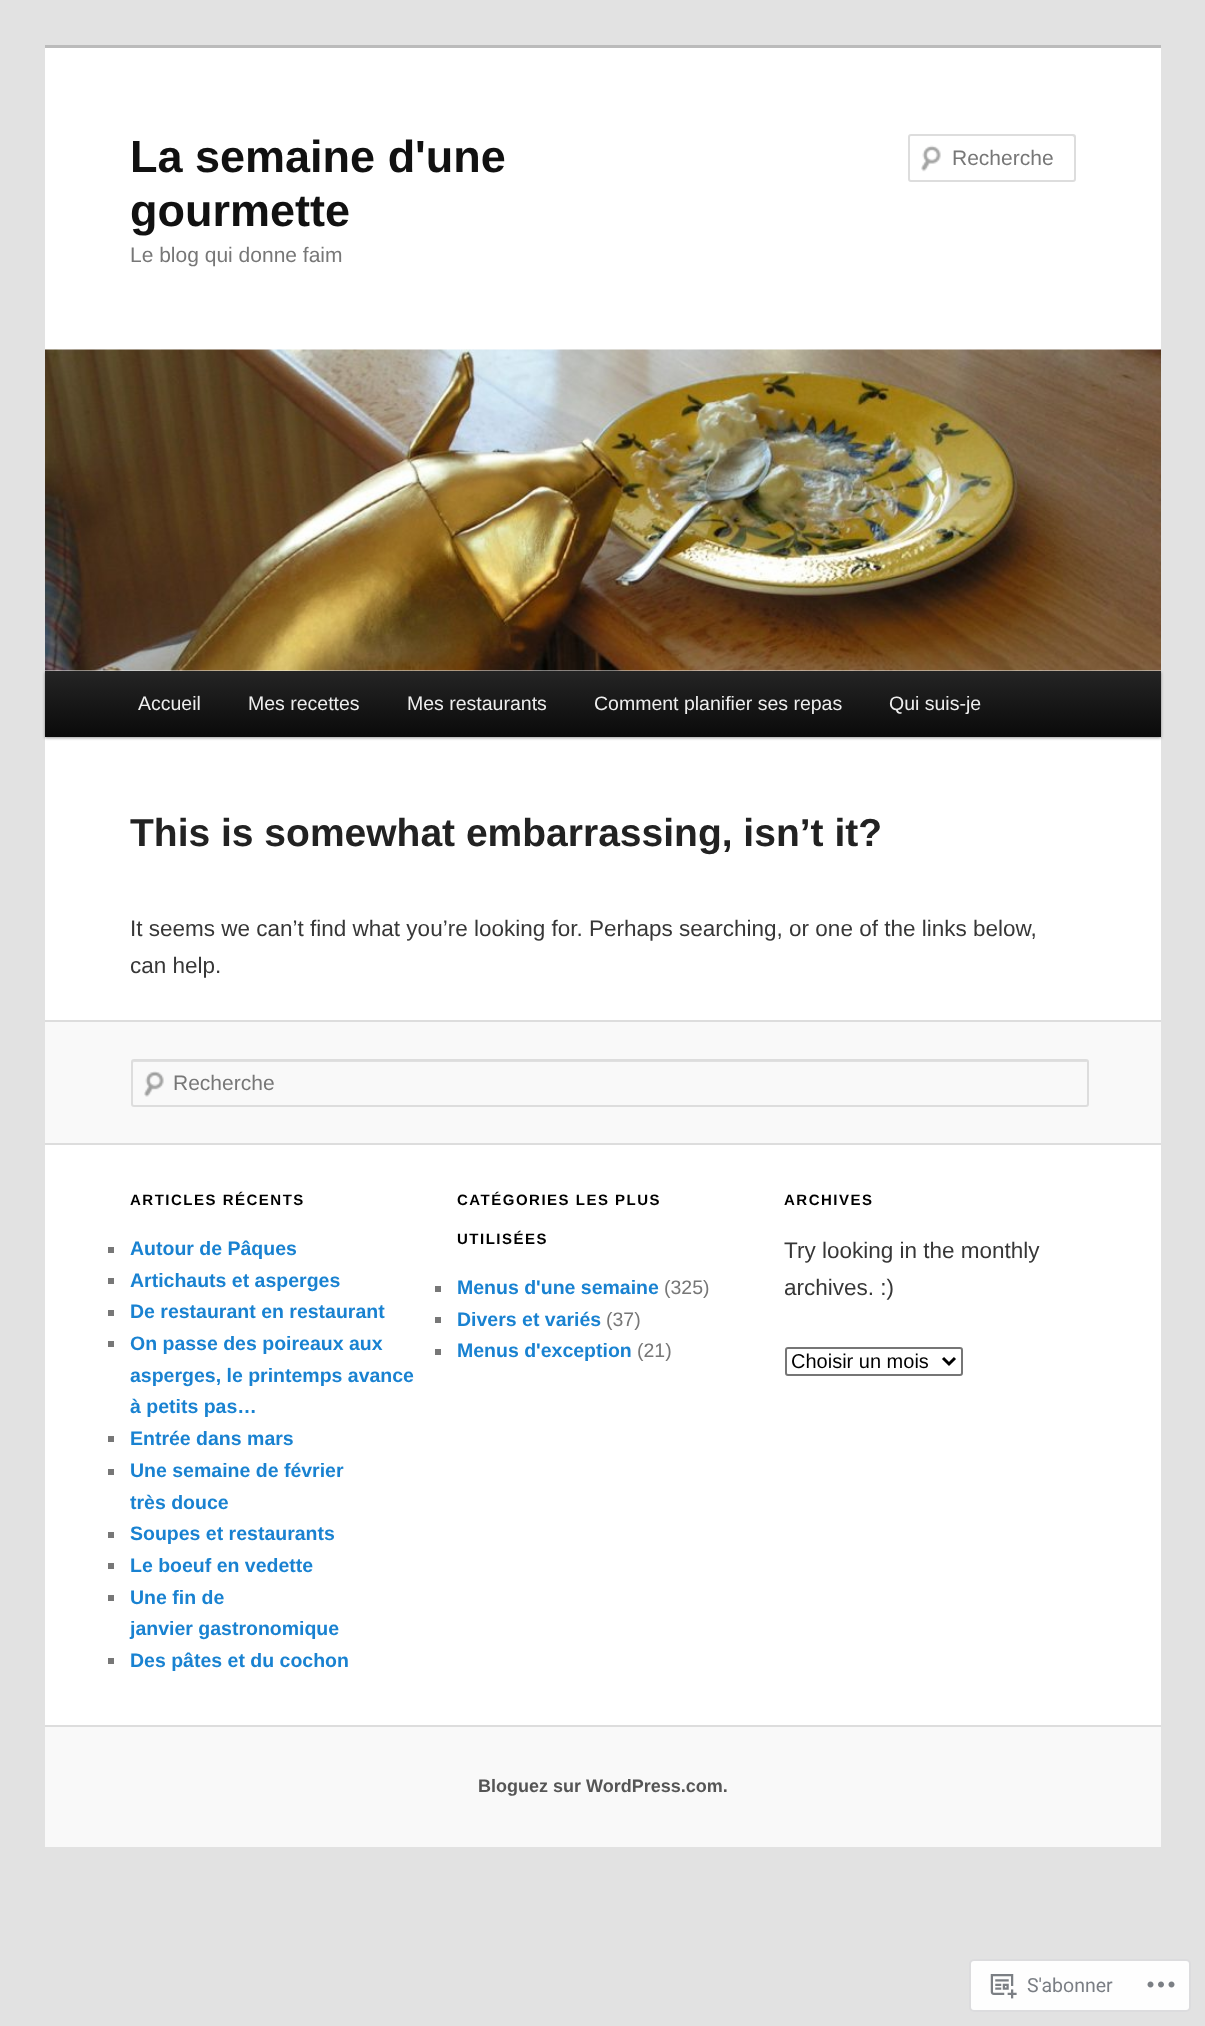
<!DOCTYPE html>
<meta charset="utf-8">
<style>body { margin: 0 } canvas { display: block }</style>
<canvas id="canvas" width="1205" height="2026"></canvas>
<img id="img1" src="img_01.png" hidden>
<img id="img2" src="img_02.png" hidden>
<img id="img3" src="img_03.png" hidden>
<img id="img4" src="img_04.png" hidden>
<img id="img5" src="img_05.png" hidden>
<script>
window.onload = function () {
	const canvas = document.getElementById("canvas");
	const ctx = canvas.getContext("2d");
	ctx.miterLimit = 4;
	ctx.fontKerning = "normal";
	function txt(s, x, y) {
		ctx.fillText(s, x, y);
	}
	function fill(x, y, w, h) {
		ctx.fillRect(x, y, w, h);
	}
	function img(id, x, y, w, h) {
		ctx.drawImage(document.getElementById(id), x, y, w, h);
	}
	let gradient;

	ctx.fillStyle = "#E2E2E2";
	fill(0, 0, 1205, 2026);
	ctx.fillStyle = "#FFFFFF";
	fill(45, 48, 1116, 1677);
	ctx.fillStyle = "#BBBBBB";
	fill(45, 45, 1116, 3);
	img("img1", 921, 145, 20, 27);
	ctx.fillStyle = "#E6E6E6";
	ctx.beginPath();
	ctx.moveTo(910, 136);
	ctx.lineTo(1072, 136);
	ctx.bezierCurveTo(1073, 136, 1074, 137, 1074, 138);
	ctx.lineTo(1074, 136);
	ctx.bezierCurveTo(1074, 136, 1073, 135, 1072, 135);
	ctx.lineTo(910, 135);
	ctx.bezierCurveTo(910, 135, 909, 136, 909, 136);
	ctx.lineTo(909, 138);
	ctx.closePath();
	ctx.fill();
	ctx.beginPath();
	ctx.roundRect(909, 135, 166, 46, 2);
	ctx.strokeStyle = "#DDDDDD";
	ctx.lineWidth = 2;
	ctx.stroke();
	ctx.fillStyle = "rgba(0, 0, 0, 0.4)";
	ctx.filter = "blur(1.5px)";
	ctx.beginPath();
	ctx.rect(45, 672, 1116, 66);
	ctx.fill();
	ctx.filter = "none";
	img("img2", 45, 349, 1116, 322);
	gradient = ctx.createLinearGradient(603, 670, 603, 737);
	gradient.addColorStop(0, "#252525");
	gradient.addColorStop(1, "#0A0A0A");
	ctx.fillStyle = gradient;
	fill(45, 671, 1116, 66);
	ctx.fillStyle = "#F9F9F9";
	fill(45, 1022, 1116, 121);
	ctx.fillStyle = "#DDDDDD";
	fill(45, 1020, 1116, 2);
	fill(45, 1143, 1116, 2);
	img("img3", 144, 1071, 20, 26);
	ctx.fillStyle = "#E0E0E0";
	ctx.beginPath();
	ctx.moveTo(134, 1062);
	ctx.lineTo(1087, 1062);
	ctx.lineTo(1088, 1064);
	ctx.lineTo(1087, 1106);
	ctx.bezierCurveTo(1088, 1106, 1088, 1105, 1088, 1104);
	ctx.lineTo(1088, 1062);
	ctx.bezierCurveTo(1088, 1062, 1087, 1061, 1086, 1061);
	ctx.lineTo(134, 1061);
	ctx.bezierCurveTo(133, 1061, 132, 1062, 132, 1062);
	ctx.lineTo(132, 1063);
	ctx.closePath();
	ctx.fill();
	ctx.beginPath();
	ctx.roundRect(132, 1060, 956, 46, 2);
	ctx.stroke();
	ctx.fillStyle = "#777777";
	fill(108, 1247, 6, 6);
	fill(108, 1278, 6, 6);
	fill(108, 1310, 6, 6);
	fill(108, 1341, 6, 6);
	fill(108, 1436, 6, 6);
	fill(108, 1469, 6, 6);
	fill(108, 1532, 6, 6);
	fill(108, 1563, 6, 6);
	fill(108, 1595, 6, 6);
	fill(108, 1658, 6, 6);
	fill(435, 1286, 6, 6);
	fill(435, 1317, 6, 6);
	fill(435, 1349, 6, 6);
	ctx.beginPath();
	ctx.roundRect(786, 1348, 176, 27, 2);
	ctx.strokeStyle = "#767676";
	ctx.stroke();
	ctx.beginPath();
	ctx.moveTo(943, 1358);
	ctx.lineTo(949, 1364);
	ctx.lineTo(955, 1358);
	ctx.strokeStyle = "#000000";
	ctx.lineWidth = 3;
	ctx.stroke();
	ctx.fillStyle = "#F9F9F9";
	fill(45, 1727, 1116, 120);
	ctx.fillStyle = "#DDDDDD";
	fill(45, 1725, 1116, 2);
	ctx.fillStyle = "#FEFEFE";
	ctx.beginPath();
	ctx.roundRect(970, 1960, 220, 51, 4);
	ctx.fill();
	ctx.strokeStyle = "#DCDCDE";
	ctx.lineWidth = 2;
	ctx.stroke();
	img("img4", 990, 1974, 27, 25);
	img("img5", 1147, 1981, 28, 7);
	ctx.font = "bold 45px Liberation Sans";
	ctx.fillStyle = "#111111";
	txt("La semaine d'une", 130, 172);
	txt("gourmette", 130, 226);
	ctx.font = "21px Liberation Sans";
	ctx.fillStyle = "#777777";
	txt("Le blog qui donne faim", 130, 262);
	txt("Recherche", 952, 165);
	ctx.font = "19.5px Liberation Sans";
	ctx.fillStyle = "#EEEEEE";
	txt("Accueil", 138, 710);
	txt("Mes recettes", 248, 710);
	txt("Mes restaurants", 407, 710);
	txt("Comment planifier ses repas", 594, 710);
	txt("Qui suis-je", 889, 710);
	ctx.font = "bold 39px Liberation Sans";
	ctx.fillStyle = "#222222";
	txt("This is somewhat embarrassing, isn’t it?", 130, 846);
	ctx.font = "22.5px Liberation Sans";
	ctx.fillStyle = "#373737";
	txt("It seems we can’t find what you’re looking for. Perhaps searching, or one of the links below,", 130, 936);
	txt("can help.", 130, 973);
	ctx.font = "21px Liberation Sans";
	ctx.fillStyle = "#777777";
	txt("Recherche", 173, 1090);
	ctx.letterSpacing = "1.5px";
	ctx.font = "bold 15px Liberation Sans";
	ctx.fillStyle = "#000000";
	txt("ARTICLES RÉCENTS", 130, 1205);
	ctx.letterSpacing = "0px";
	ctx.font = "bold 19.5px Liberation Sans";
	ctx.fillStyle = "#1982D1";
	txt("Autour de Pâques", 130, 1255);
	txt("Artichauts et asperges", 130, 1287);
	txt("De restaurant en restaurant", 130, 1318);
	txt("On passe des poireaux aux", 130, 1350);
	txt("asperges, le printemps avance", 130, 1382);
	txt("à petits pas…", 130, 1413);
	txt("Entrée dans mars", 130, 1445);
	txt("Une semaine de février", 130, 1477);
	txt("très douce", 130, 1509);
	txt("Soupes et restaurants", 130, 1540);
	txt("Le boeuf en vedette", 130, 1572);
	txt("Une fin de", 130, 1604);
	txt("janvier gastronomique", 130, 1635);
	txt("Des pâtes et du cochon", 130, 1667);
	ctx.letterSpacing = "1.5px";
	ctx.font = "bold 15px Liberation Sans";
	ctx.fillStyle = "#000000";
	txt("CATÉGORIES LES PLUS", 457, 1205);
	txt("UTILISÉES", 457, 1244);
	ctx.letterSpacing = "0px";
	ctx.font = "bold 19.5px Liberation Sans";
	ctx.fillStyle = "#1982D1";
	txt("Menus d'une semaine", 457, 1294);
	ctx.font = "19.5px Liberation Sans";
	ctx.fillStyle = "#777777";
	txt("(325)", 664, 1294);
	ctx.font = "bold 19.5px Liberation Sans";
	ctx.fillStyle = "#1982D1";
	txt("Divers et variés", 457, 1326);
	ctx.font = "19.5px Liberation Sans";
	ctx.fillStyle = "#777777";
	txt("(37)", 606, 1326);
	ctx.font = "bold 19.5px Liberation Sans";
	ctx.fillStyle = "#1982D1";
	txt("Menus d'exception", 457, 1357);
	ctx.font = "19.5px Liberation Sans";
	ctx.fillStyle = "#777777";
	txt("(21)", 637, 1357);
	ctx.letterSpacing = "1.5px";
	ctx.font = "bold 15px Liberation Sans";
	ctx.fillStyle = "#000000";
	txt("ARCHIVES", 784, 1205);
	ctx.letterSpacing = "0px";
	ctx.font = "22.5px Liberation Sans";
	ctx.fillStyle = "#373737";
	txt("Try looking in the monthly", 784, 1258);
	txt("archives. :)", 784, 1295);
	ctx.font = "20px Liberation Sans";
	ctx.fillStyle = "#000000";
	txt("Choisir un mois", 791, 1368);
	ctx.font = "bold 18px Liberation Sans";
	ctx.fillStyle = "#555555";
	txt("Bloguez sur WordPress.com.", 478, 1792);
	ctx.font = "19.5px Roboto";
	ctx.fillStyle = "#7A7E84";
	txt("S'abonner", 1027, 1992);
};
</script>
